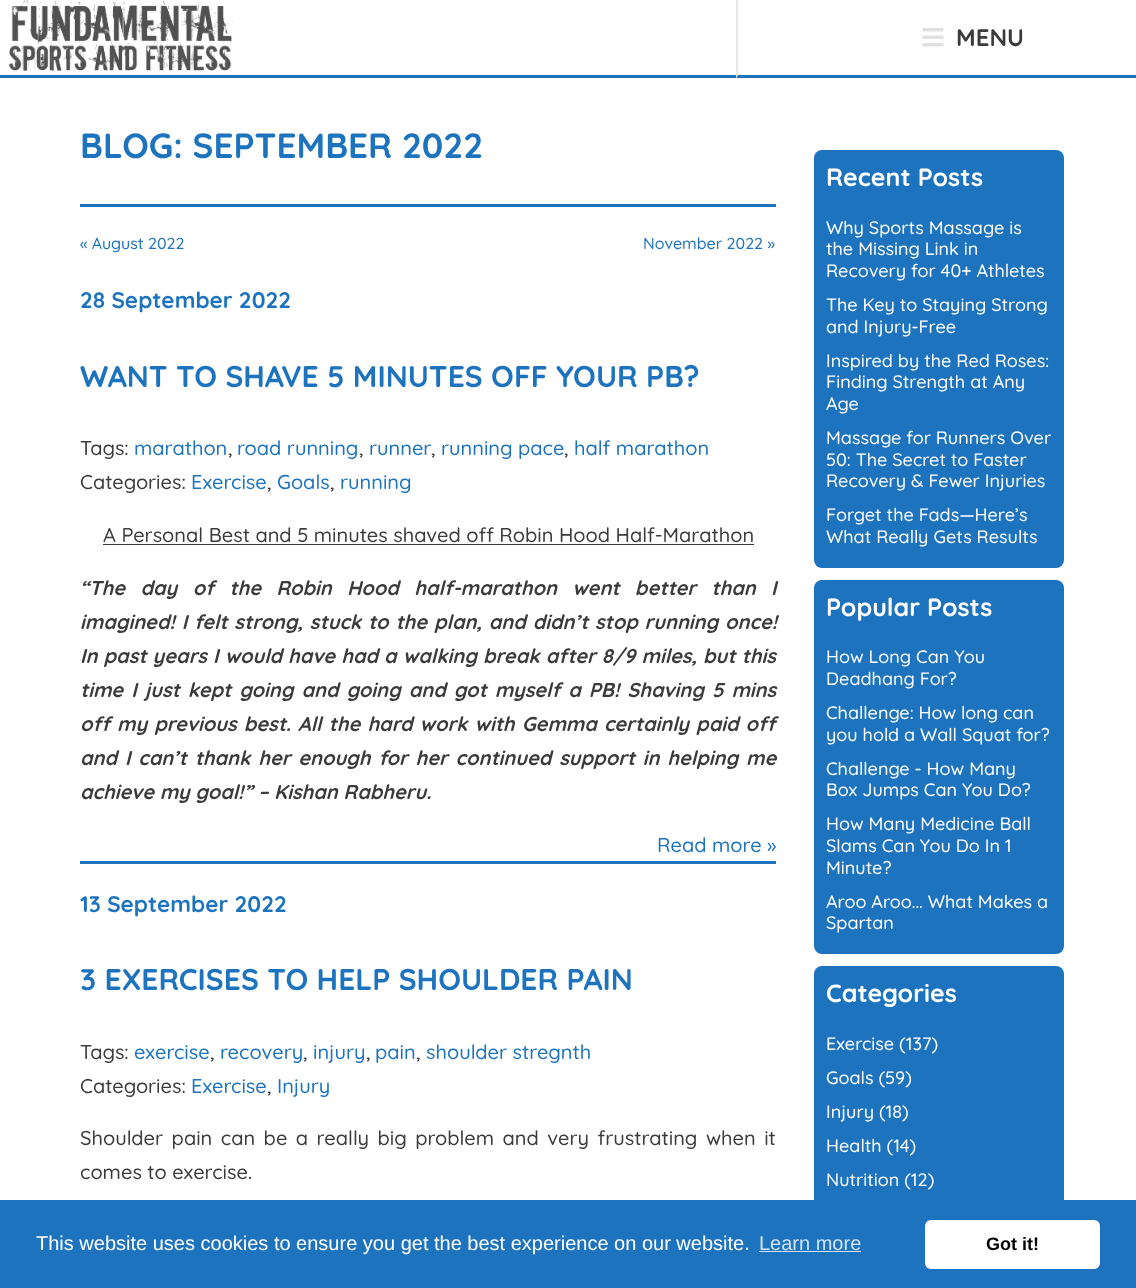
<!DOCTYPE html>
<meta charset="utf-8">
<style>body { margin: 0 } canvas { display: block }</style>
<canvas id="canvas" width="1136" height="1288"></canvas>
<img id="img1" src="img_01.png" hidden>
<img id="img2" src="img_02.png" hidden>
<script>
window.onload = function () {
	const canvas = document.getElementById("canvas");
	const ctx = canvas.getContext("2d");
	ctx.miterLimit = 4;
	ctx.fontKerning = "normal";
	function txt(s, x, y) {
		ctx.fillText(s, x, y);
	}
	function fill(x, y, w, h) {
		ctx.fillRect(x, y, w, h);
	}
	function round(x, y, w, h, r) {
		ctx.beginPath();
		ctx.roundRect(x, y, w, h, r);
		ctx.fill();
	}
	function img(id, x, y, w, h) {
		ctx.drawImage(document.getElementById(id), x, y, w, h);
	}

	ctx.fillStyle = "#FFFFFF";
	fill(0, 0, 1136, 1288);
	ctx.fillStyle = "#1E73BE";
	fill(0, 75, 736, 3);
	img("img1", 5, 0, 229, 72);
	ctx.beginPath();
	ctx.moveTo(1136, 78);
	ctx.lineTo(736, 78);
	ctx.lineTo(738, 75);
	ctx.lineTo(1136, 75);
	ctx.closePath();
	ctx.fill();
	ctx.fillStyle = "#E5E5E5";
	ctx.beginPath();
	ctx.moveTo(736, 78);
	ctx.lineTo(736, 0);
	ctx.lineTo(738, 0);
	ctx.lineTo(738, 75);
	ctx.closePath();
	ctx.fill();
	img("img2", 922, 28, 22, 19);
	ctx.fillStyle = "#1E73BE";
	fill(80, 204, 696, 3);
	round(814, 150, 250, 418, 8);
	round(814, 580, 250, 374, 8);
	round(814, 966, 250, 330, 8);
	fill(80, 861, 696, 3);
	ctx.fillStyle = "#3B3B3B";
	fill(103, 544, 651, 1);
	ctx.fillStyle = "#1E73BE";
	fill(0, 1200, 1136, 88);
	ctx.fillStyle = "#D2E3F2";
	fill(759, 1251, 102, 1);
	ctx.fillStyle = "#FFFFFF";
	round(925, 1220, 175, 49, 6);
	ctx.font = "bold 24px Quicksand";
	ctx.fillStyle = "#3B3B3B";
	txt("MENU", 956, 46);
	ctx.font = "bold 35px Quicksand";
	ctx.fillStyle = "#1E73BE";
	txt("BLOG: SEPTEMBER 2022", 80, 158);
	ctx.font = "500 16px Quicksand";
	txt("« August 2022", 80, 249);
	txt("November 2022 »", 643, 249);
	ctx.font = "bold 25px Quicksand";
	ctx.fillStyle = "#FFFFFF";
	txt("Recent Posts", 826, 186);
	ctx.font = "500 18px Quicksand";
	txt("Why Sports Massage is", 826, 234);
	txt("the Missing Link in", 826, 255);
	txt("Recovery for 40+ Athletes", 826, 277);
	txt("The Key to Staying Strong", 826, 311);
	txt("and Injury-Free", 826, 333);
	txt("Inspired by the Red Roses:", 826, 367);
	txt("Finding Strength at Any", 826, 388);
	txt("Age", 826, 410);
	txt("Massage for Runners Over", 826, 444);
	txt("50: The Secret to Faster", 826, 466);
	txt("Recovery & Fewer Injuries", 826, 487);
	txt("Forget the Fads—Here’s", 826, 521);
	txt("What Really Gets Results", 826, 543);
	ctx.font = "bold 25px Quicksand";
	txt("Popular Posts", 826, 616);
	ctx.font = "500 18px Quicksand";
	txt("How Long Can You", 826, 663);
	txt("Deadhang For?", 826, 685);
	txt("Challenge: How long can", 826, 719);
	txt("you hold a Wall Squat for?", 826, 741);
	txt("Challenge - How Many", 826, 775);
	txt("Box Jumps Can You Do?", 826, 796);
	txt("How Many Medicine Ball", 826, 830);
	txt("Slams Can You Do In 1", 826, 852);
	txt("Minute?", 826, 874);
	txt("Aroo Aroo... What Makes a", 826, 908);
	txt("Spartan", 826, 929);
	ctx.font = "bold 25px Quicksand";
	txt("Categories", 826, 1002);
	ctx.font = "500 18px Quicksand";
	txt("Exercise (137)", 826, 1050);
	txt("Goals (59)", 826, 1084);
	txt("Injury (18)", 826, 1118);
	txt("Health (14)", 826, 1152);
	txt("Nutrition (12)", 826, 1186);
	ctx.font = "bold 22.5px Quicksand";
	ctx.fillStyle = "#1E73BE";
	txt("28 September 2022", 80, 308);
	ctx.font = "bold 30px Quicksand";
	txt("WANT TO SHAVE 5 MINUTES OFF YOUR PB?", 80, 387);
	ctx.font = "500 20px Quicksand";
	ctx.fillStyle = "#3B3B3B";
	txt("Tags:", 80, 455);
	ctx.fillStyle = "#1E73BE";
	txt("marathon", 134, 455);
	ctx.fillStyle = "#3B3B3B";
	txt(",", 228, 455);
	ctx.fillStyle = "#1E73BE";
	txt("road running", 237, 455);
	ctx.fillStyle = "#3B3B3B";
	txt(",", 359, 455);
	ctx.fillStyle = "#1E73BE";
	txt("runner", 369, 455);
	ctx.fillStyle = "#3B3B3B";
	txt(",", 431, 455);
	ctx.fillStyle = "#1E73BE";
	txt("running pace", 441, 455);
	ctx.fillStyle = "#3B3B3B";
	txt(",", 564, 455);
	ctx.fillStyle = "#1E73BE";
	txt("half marathon", 574, 455);
	ctx.fillStyle = "#3B3B3B";
	txt("Categories:", 80, 489);
	ctx.fillStyle = "#1E73BE";
	txt("Exercise", 191, 489);
	ctx.fillStyle = "#3B3B3B";
	txt(",", 267, 489);
	ctx.fillStyle = "#1E73BE";
	txt("Goals", 277, 489);
	ctx.fillStyle = "#3B3B3B";
	txt(",", 330, 489);
	ctx.fillStyle = "#1E73BE";
	txt("running", 340, 489);
	ctx.fillStyle = "#3B3B3B";
	txt("A Personal Best and 5 minutes shaved off Robin Hood Half-Marathon", 103, 542);
	ctx.wordSpacing = "9.75px";
	ctx.font = "italic bold 20px Quicksand";
	txt("“The day of the Robin Hood half-marathon went better than I", 80, 595);
	ctx.wordSpacing = "1.25px";
	txt("imagined! I felt strong, stuck to the plan, and didn’t stop running once!", 80, 629);
	ctx.wordSpacing = "0.5px";
	txt("In past years I would have had a walking break after 8/9 miles, but this", 80, 663);
	ctx.wordSpacing = "2.4px";
	txt("time I just kept going and going and got myself a PB! Shaving 5 mins", 80, 697);
	ctx.wordSpacing = "1.5px";
	txt("off my previous best. All the hard work with Gemma certainly paid off", 80, 731);
	ctx.wordSpacing = "2.25px";
	txt("and I can’t thank her enough for her continued support in helping me", 80, 765);
	ctx.wordSpacing = "0px";
	txt("achieve my goal!” – Kishan Rabheru.", 80, 799);
	ctx.font = "500 20px Quicksand";
	ctx.fillStyle = "#1E73BE";
	txt("Read more »", 657, 852);
	ctx.font = "bold 22.5px Quicksand";
	txt("13 September 2022", 80, 912);
	ctx.font = "bold 30px Quicksand";
	txt("3 EXERCISES TO HELP SHOULDER PAIN", 80, 990);
	ctx.font = "500 20px Quicksand";
	ctx.fillStyle = "#3B3B3B";
	txt("Tags:", 80, 1059);
	ctx.fillStyle = "#1E73BE";
	txt("exercise", 134, 1059);
	ctx.fillStyle = "#3B3B3B";
	txt(",", 210, 1059);
	ctx.fillStyle = "#1E73BE";
	txt("recovery", 220, 1059);
	ctx.fillStyle = "#3B3B3B";
	txt(",", 303, 1059);
	ctx.fillStyle = "#1E73BE";
	txt("injury", 313, 1059);
	ctx.fillStyle = "#3B3B3B";
	txt(",", 366, 1059);
	ctx.fillStyle = "#1E73BE";
	txt("pain", 375, 1059);
	ctx.fillStyle = "#3B3B3B";
	txt(",", 416, 1059);
	ctx.fillStyle = "#1E73BE";
	txt("shoulder stregnth", 426, 1059);
	ctx.fillStyle = "#3B3B3B";
	txt("Categories:", 80, 1093);
	ctx.fillStyle = "#1E73BE";
	txt("Exercise", 191, 1093);
	ctx.fillStyle = "#3B3B3B";
	txt(",", 267, 1093);
	ctx.fillStyle = "#1E73BE";
	txt("Injury", 277, 1093);
	ctx.wordSpacing = "3px";
	ctx.fillStyle = "#3B3B3B";
	txt("Shoulder pain can be a really big problem and very frustrating when it", 80, 1145);
	ctx.wordSpacing = "0px";
	txt("comes to exercise.", 80, 1179);
	ctx.font = "20px Liberation Sans";
	ctx.fillStyle = "#FFFFFF";
	txt("This website uses cookies to ensure you get the best experience on our website.", 36, 1250);
	ctx.fillStyle = "#D2E3F2";
	txt("Learn more", 759, 1250);
	ctx.font = "bold 18px Liberation Sans";
	ctx.fillStyle = "#000000";
	txt("Got it!", 986, 1250);
};
</script>
